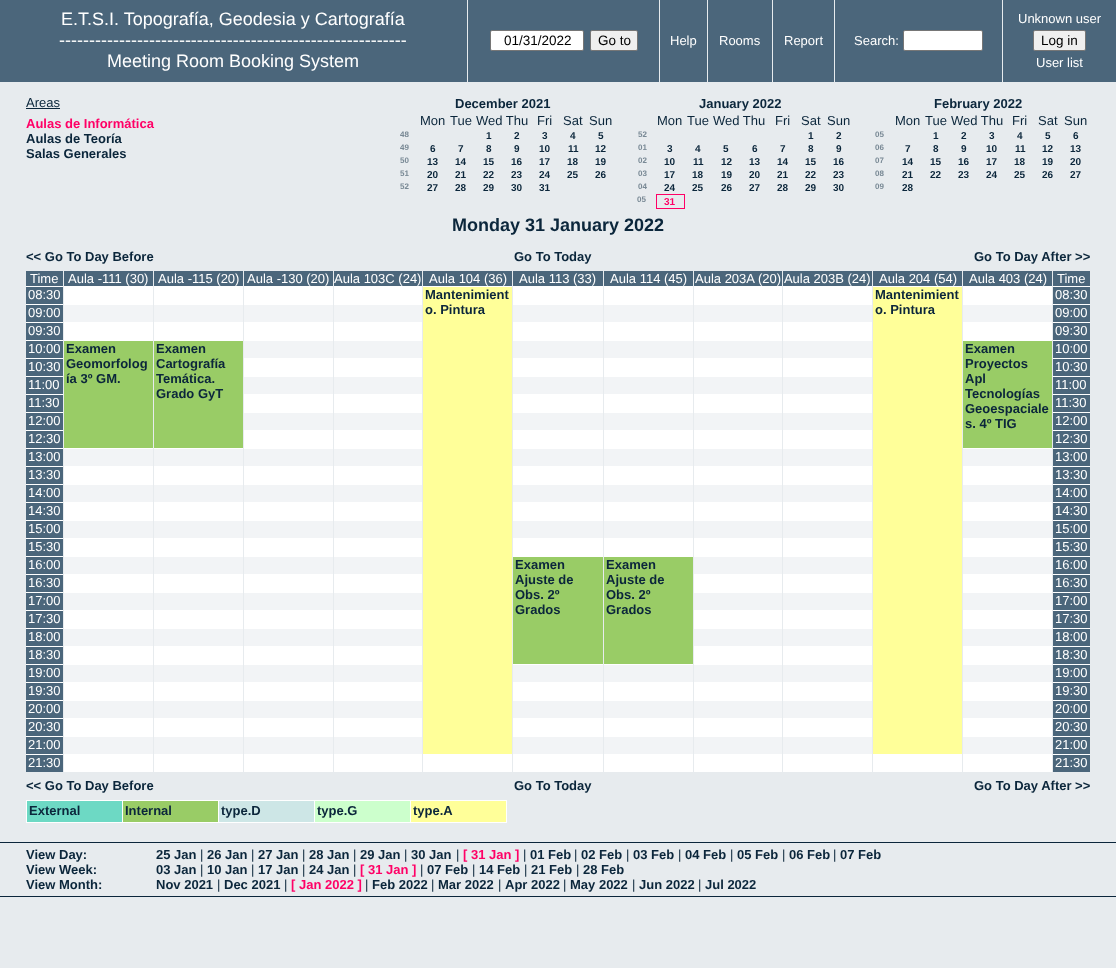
<!DOCTYPE html>
<meta charset="utf-8">
<style>body { margin: 0 } canvas { display: block }</style>
<canvas id="canvas" width="1116" height="968"></canvas>
<script>
window.onload = function () {
	const canvas = document.getElementById("canvas");
	const ctx = canvas.getContext("2d");
	ctx.miterLimit = 4;
	ctx.fontKerning = "normal";
	function txt(s, x, y) {
		ctx.fillText(s, x, y);
	}
	function fill(x, y, w, h) {
		ctx.fillRect(x, y, w, h);
	}

	ctx.fillStyle = "#E7EBEE";
	fill(0, 0, 1116, 968);
	ctx.fillStyle = "#4B667B";
	fill(0, 0, 1116, 82);
	ctx.fillStyle = "#E7EBEE";
	fill(467, 0, 1, 82);
	ctx.fillStyle = "#FFFFFF";
	ctx.beginPath();
	ctx.roundRect(490.5, 30.5, 93, 20, 1.5);
	ctx.fill();
	ctx.strokeStyle = "#767676";
	ctx.stroke();
	ctx.fillStyle = "#EFEFEF";
	ctx.beginPath();
	ctx.roundRect(590.5, 30.5, 47, 20, 1.5);
	ctx.fill();
	ctx.stroke();
	ctx.fillStyle = "#E7EBEE";
	fill(659, 0, 1, 82);
	fill(707, 0, 1, 82);
	fill(772, 0, 1, 82);
	fill(834, 0, 1, 82);
	ctx.fillStyle = "#FFFFFF";
	ctx.beginPath();
	ctx.roundRect(903.5, 30.5, 79, 20, 1.5);
	ctx.fill();
	ctx.stroke();
	ctx.fillStyle = "#E7EBEE";
	fill(1002, 0, 1, 82);
	ctx.fillStyle = "#EFEFEF";
	ctx.beginPath();
	ctx.roundRect(1033.5, 30.5, 52, 20, 1.5);
	ctx.fill();
	ctx.stroke();
	ctx.fillStyle = "#0B263B";
	fill(26, 108, 34, 1);
	ctx.fillStyle = "#FF0066";
	fill(656, 194, 29, 1);
	fill(684, 194, 1, 15);
	fill(656, 208, 29, 1);
	fill(656, 194, 1, 15);
	ctx.fillStyle = "#4B667B";
	fill(26, 271, 37, 15);
	fill(64, 271, 89, 15);
	fill(154, 271, 89, 15);
	fill(244, 271, 89, 15);
	fill(334, 271, 88, 15);
	fill(423, 271, 89, 15);
	fill(513, 271, 90, 15);
	fill(604, 271, 89, 15);
	fill(783, 271, 89, 15);
	fill(694, 271, 88, 15);
	fill(873, 271, 89, 15);
	fill(963, 271, 89, 15);
	fill(1053, 271, 37, 15);
	fill(26, 287, 37, 17);
	ctx.fillStyle = "#FFFFFF";
	fill(26, 286, 37, 1);
	fill(64, 286, 89, 18);
	fill(154, 286, 89, 18);
	fill(244, 286, 89, 18);
	fill(334, 286, 88, 18);
	ctx.fillStyle = "#FFFF99";
	fill(423, 287, 89, 467);
	ctx.fillStyle = "#FFFFFF";
	fill(422, 286, 90, 1);
	ctx.fillStyle = "#E7EBEE";
	fill(422, 286, 1, 1);
	ctx.fillStyle = "#FFFFFF";
	fill(513, 286, 90, 18);
	fill(604, 286, 89, 18);
	fill(694, 286, 88, 18);
	fill(783, 286, 89, 18);
	ctx.fillStyle = "#FFFF99";
	fill(873, 287, 89, 467);
	ctx.fillStyle = "#FFFFFF";
	fill(872, 286, 90, 1);
	ctx.fillStyle = "#E7EBEE";
	fill(872, 286, 1, 1);
	ctx.fillStyle = "#FFFFFF";
	fill(963, 286, 89, 18);
	ctx.fillStyle = "#4B667B";
	fill(1053, 287, 37, 17);
	ctx.fillStyle = "#FFFFFF";
	fill(1052, 286, 38, 1);
	ctx.fillStyle = "#E7EBEE";
	fill(1052, 286, 1, 1);
	ctx.fillStyle = "#F2F4F6";
	fill(64, 305, 89, 17);
	ctx.fillStyle = "#FFFFFF";
	fill(26, 304, 396, 1);
	ctx.fillStyle = "#E7EBEE";
	fill(63, 304, 1, 1);
	ctx.fillStyle = "#F2F4F6";
	fill(154, 305, 89, 17);
	ctx.fillStyle = "#E7EBEE";
	fill(153, 304, 1, 1);
	ctx.fillStyle = "#F2F4F6";
	fill(244, 305, 89, 17);
	ctx.fillStyle = "#E7EBEE";
	fill(243, 304, 1, 1);
	ctx.fillStyle = "#F2F4F6";
	fill(334, 305, 88, 17);
	ctx.fillStyle = "#E7EBEE";
	fill(333, 304, 1, 1);
	ctx.fillStyle = "#F2F4F6";
	fill(513, 305, 90, 17);
	ctx.fillStyle = "#FFFFFF";
	fill(512, 304, 360, 1);
	ctx.fillStyle = "#E7EBEE";
	fill(512, 304, 1, 1);
	ctx.fillStyle = "#4B667B";
	fill(26, 305, 37, 17);
	ctx.fillStyle = "#F2F4F6";
	fill(604, 305, 89, 17);
	ctx.fillStyle = "#E7EBEE";
	fill(603, 304, 1, 1);
	ctx.fillStyle = "#F2F4F6";
	fill(694, 305, 88, 17);
	ctx.fillStyle = "#E7EBEE";
	fill(693, 304, 1, 1);
	ctx.fillStyle = "#F2F4F6";
	fill(783, 305, 89, 17);
	ctx.fillStyle = "#E7EBEE";
	fill(782, 304, 1, 1);
	ctx.fillStyle = "#F2F4F6";
	fill(963, 305, 89, 17);
	ctx.fillStyle = "#FFFFFF";
	fill(962, 304, 128, 1);
	ctx.fillStyle = "#E7EBEE";
	fill(962, 304, 1, 1);
	ctx.fillStyle = "#4B667B";
	fill(1053, 305, 37, 17);
	ctx.fillStyle = "#E7EBEE";
	fill(1052, 304, 1, 1);
	ctx.fillStyle = "#4B667B";
	fill(26, 323, 37, 17);
	ctx.fillStyle = "#FFFFFF";
	fill(26, 322, 37, 1);
	fill(64, 322, 89, 18);
	fill(154, 322, 89, 18);
	fill(244, 322, 89, 18);
	fill(334, 322, 88, 18);
	fill(513, 322, 90, 18);
	fill(604, 322, 89, 18);
	fill(694, 322, 88, 18);
	fill(783, 322, 89, 18);
	fill(963, 322, 89, 18);
	ctx.fillStyle = "#4B667B";
	fill(1053, 323, 37, 17);
	ctx.fillStyle = "#FFFFFF";
	fill(1052, 322, 38, 1);
	ctx.fillStyle = "#E7EBEE";
	fill(1052, 322, 1, 1);
	ctx.fillStyle = "#F2F4F6";
	fill(244, 341, 89, 17);
	ctx.fillStyle = "#FFFFFF";
	fill(26, 340, 396, 1);
	ctx.fillStyle = "#E7EBEE";
	fill(243, 340, 1, 1);
	ctx.fillStyle = "#F2F4F6";
	fill(334, 341, 88, 17);
	ctx.fillStyle = "#E7EBEE";
	fill(333, 340, 1, 1);
	ctx.fillStyle = "#F2F4F6";
	fill(513, 341, 90, 17);
	ctx.fillStyle = "#FFFFFF";
	fill(512, 340, 360, 1);
	ctx.fillStyle = "#E7EBEE";
	fill(512, 340, 1, 1);
	ctx.fillStyle = "#4B667B";
	fill(26, 341, 37, 17);
	ctx.fillStyle = "#99CC66";
	fill(64, 341, 89, 107);
	ctx.fillStyle = "#E7EBEE";
	fill(63, 340, 1, 1);
	ctx.fillStyle = "#99CC66";
	fill(154, 341, 89, 107);
	ctx.fillStyle = "#E7EBEE";
	fill(153, 340, 1, 1);
	ctx.fillStyle = "#F2F4F6";
	fill(604, 341, 89, 17);
	ctx.fillStyle = "#E7EBEE";
	fill(603, 340, 1, 1);
	ctx.fillStyle = "#F2F4F6";
	fill(694, 341, 88, 17);
	ctx.fillStyle = "#E7EBEE";
	fill(693, 340, 1, 1);
	ctx.fillStyle = "#F2F4F6";
	fill(783, 341, 89, 17);
	ctx.fillStyle = "#E7EBEE";
	fill(782, 340, 1, 1);
	ctx.fillStyle = "#99CC66";
	fill(963, 341, 89, 107);
	ctx.fillStyle = "#FFFFFF";
	fill(962, 340, 128, 1);
	ctx.fillStyle = "#E7EBEE";
	fill(962, 340, 1, 1);
	ctx.fillStyle = "#4B667B";
	fill(1053, 341, 37, 17);
	ctx.fillStyle = "#E7EBEE";
	fill(1052, 340, 1, 1);
	ctx.fillStyle = "#4B667B";
	fill(26, 359, 37, 17);
	ctx.fillStyle = "#FFFFFF";
	fill(26, 358, 37, 1);
	fill(244, 358, 89, 18);
	fill(334, 358, 88, 18);
	fill(513, 358, 90, 18);
	fill(604, 358, 89, 18);
	fill(694, 358, 88, 18);
	fill(783, 358, 89, 18);
	ctx.fillStyle = "#4B667B";
	fill(1053, 359, 37, 17);
	ctx.fillStyle = "#FFFFFF";
	fill(1052, 358, 38, 1);
	ctx.fillStyle = "#E7EBEE";
	fill(1052, 358, 1, 1);
	ctx.fillStyle = "#F2F4F6";
	fill(244, 377, 89, 17);
	ctx.fillStyle = "#FFFFFF";
	fill(243, 376, 179, 1);
	ctx.fillStyle = "#E7EBEE";
	fill(243, 376, 1, 1);
	ctx.fillStyle = "#F2F4F6";
	fill(334, 377, 88, 17);
	ctx.fillStyle = "#E7EBEE";
	fill(333, 376, 1, 1);
	ctx.fillStyle = "#F2F4F6";
	fill(513, 377, 90, 17);
	ctx.fillStyle = "#FFFFFF";
	fill(512, 376, 360, 1);
	ctx.fillStyle = "#E7EBEE";
	fill(512, 376, 1, 1);
	ctx.fillStyle = "#4B667B";
	fill(26, 377, 37, 17);
	ctx.fillStyle = "#FFFFFF";
	fill(26, 376, 37, 1);
	ctx.fillStyle = "#F2F4F6";
	fill(604, 377, 89, 17);
	ctx.fillStyle = "#E7EBEE";
	fill(603, 376, 1, 1);
	ctx.fillStyle = "#F2F4F6";
	fill(694, 377, 88, 17);
	ctx.fillStyle = "#E7EBEE";
	fill(693, 376, 1, 1);
	ctx.fillStyle = "#F2F4F6";
	fill(783, 377, 89, 17);
	ctx.fillStyle = "#E7EBEE";
	fill(782, 376, 1, 1);
	ctx.fillStyle = "#4B667B";
	fill(1053, 377, 37, 17);
	ctx.fillStyle = "#FFFFFF";
	fill(1052, 376, 38, 1);
	ctx.fillStyle = "#E7EBEE";
	fill(1052, 376, 1, 1);
	ctx.fillStyle = "#4B667B";
	fill(26, 395, 37, 17);
	ctx.fillStyle = "#FFFFFF";
	fill(26, 394, 37, 1);
	fill(244, 394, 89, 18);
	fill(334, 394, 88, 18);
	fill(513, 394, 90, 18);
	fill(604, 394, 89, 18);
	fill(694, 394, 88, 18);
	fill(783, 394, 89, 18);
	ctx.fillStyle = "#4B667B";
	fill(1053, 395, 37, 17);
	ctx.fillStyle = "#FFFFFF";
	fill(1052, 394, 38, 1);
	ctx.fillStyle = "#E7EBEE";
	fill(1052, 394, 1, 1);
	ctx.fillStyle = "#F2F4F6";
	fill(244, 413, 89, 17);
	ctx.fillStyle = "#FFFFFF";
	fill(243, 412, 179, 1);
	ctx.fillStyle = "#E7EBEE";
	fill(243, 412, 1, 1);
	ctx.fillStyle = "#F2F4F6";
	fill(334, 413, 88, 17);
	ctx.fillStyle = "#E7EBEE";
	fill(333, 412, 1, 1);
	ctx.fillStyle = "#F2F4F6";
	fill(513, 413, 90, 17);
	ctx.fillStyle = "#FFFFFF";
	fill(512, 412, 360, 1);
	ctx.fillStyle = "#E7EBEE";
	fill(512, 412, 1, 1);
	ctx.fillStyle = "#4B667B";
	fill(26, 413, 37, 17);
	ctx.fillStyle = "#FFFFFF";
	fill(26, 412, 37, 1);
	ctx.fillStyle = "#F2F4F6";
	fill(604, 413, 89, 17);
	ctx.fillStyle = "#E7EBEE";
	fill(603, 412, 1, 1);
	ctx.fillStyle = "#F2F4F6";
	fill(694, 413, 88, 17);
	ctx.fillStyle = "#E7EBEE";
	fill(693, 412, 1, 1);
	ctx.fillStyle = "#F2F4F6";
	fill(783, 413, 89, 17);
	ctx.fillStyle = "#E7EBEE";
	fill(782, 412, 1, 1);
	ctx.fillStyle = "#4B667B";
	fill(1053, 413, 37, 17);
	ctx.fillStyle = "#FFFFFF";
	fill(1052, 412, 38, 1);
	ctx.fillStyle = "#E7EBEE";
	fill(1052, 412, 1, 1);
	ctx.fillStyle = "#4B667B";
	fill(26, 431, 37, 17);
	ctx.fillStyle = "#FFFFFF";
	fill(26, 430, 37, 1);
	fill(244, 430, 89, 18);
	fill(334, 430, 88, 18);
	fill(513, 430, 90, 18);
	fill(604, 430, 89, 18);
	fill(694, 430, 88, 18);
	fill(783, 430, 89, 18);
	ctx.fillStyle = "#4B667B";
	fill(1053, 431, 37, 17);
	ctx.fillStyle = "#FFFFFF";
	fill(1052, 430, 38, 1);
	ctx.fillStyle = "#E7EBEE";
	fill(1052, 430, 1, 1);
	ctx.fillStyle = "#F2F4F6";
	fill(64, 449, 89, 17);
	ctx.fillStyle = "#FFFFFF";
	fill(26, 448, 396, 1);
	ctx.fillStyle = "#E7EBEE";
	fill(63, 448, 1, 1);
	ctx.fillStyle = "#F2F4F6";
	fill(154, 449, 89, 17);
	ctx.fillStyle = "#E7EBEE";
	fill(153, 448, 1, 1);
	ctx.fillStyle = "#F2F4F6";
	fill(244, 449, 89, 17);
	ctx.fillStyle = "#E7EBEE";
	fill(243, 448, 1, 1);
	ctx.fillStyle = "#F2F4F6";
	fill(334, 449, 88, 17);
	ctx.fillStyle = "#E7EBEE";
	fill(333, 448, 1, 1);
	ctx.fillStyle = "#F2F4F6";
	fill(513, 449, 90, 17);
	ctx.fillStyle = "#FFFFFF";
	fill(512, 448, 360, 1);
	ctx.fillStyle = "#E7EBEE";
	fill(512, 448, 1, 1);
	ctx.fillStyle = "#4B667B";
	fill(26, 449, 37, 17);
	ctx.fillStyle = "#F2F4F6";
	fill(604, 449, 89, 17);
	ctx.fillStyle = "#E7EBEE";
	fill(603, 448, 1, 1);
	ctx.fillStyle = "#F2F4F6";
	fill(694, 449, 88, 17);
	ctx.fillStyle = "#E7EBEE";
	fill(693, 448, 1, 1);
	ctx.fillStyle = "#F2F4F6";
	fill(783, 449, 89, 17);
	ctx.fillStyle = "#E7EBEE";
	fill(782, 448, 1, 1);
	ctx.fillStyle = "#F2F4F6";
	fill(963, 449, 89, 17);
	ctx.fillStyle = "#FFFFFF";
	fill(962, 448, 128, 1);
	ctx.fillStyle = "#E7EBEE";
	fill(962, 448, 1, 1);
	ctx.fillStyle = "#4B667B";
	fill(1053, 449, 37, 17);
	ctx.fillStyle = "#E7EBEE";
	fill(1052, 448, 1, 1);
	ctx.fillStyle = "#4B667B";
	fill(26, 467, 37, 17);
	ctx.fillStyle = "#FFFFFF";
	fill(26, 466, 37, 1);
	fill(64, 466, 89, 18);
	fill(154, 466, 89, 18);
	fill(244, 466, 89, 18);
	fill(334, 466, 88, 18);
	fill(513, 466, 90, 18);
	fill(604, 466, 89, 18);
	fill(694, 466, 88, 18);
	fill(783, 466, 89, 18);
	fill(963, 466, 89, 18);
	ctx.fillStyle = "#4B667B";
	fill(1053, 467, 37, 17);
	ctx.fillStyle = "#FFFFFF";
	fill(1052, 466, 38, 1);
	ctx.fillStyle = "#E7EBEE";
	fill(1052, 466, 1, 1);
	ctx.fillStyle = "#F2F4F6";
	fill(64, 485, 89, 17);
	ctx.fillStyle = "#FFFFFF";
	fill(26, 484, 396, 1);
	ctx.fillStyle = "#E7EBEE";
	fill(63, 484, 1, 1);
	ctx.fillStyle = "#F2F4F6";
	fill(154, 485, 89, 17);
	ctx.fillStyle = "#E7EBEE";
	fill(153, 484, 1, 1);
	ctx.fillStyle = "#F2F4F6";
	fill(244, 485, 89, 17);
	ctx.fillStyle = "#E7EBEE";
	fill(243, 484, 1, 1);
	ctx.fillStyle = "#F2F4F6";
	fill(334, 485, 88, 17);
	ctx.fillStyle = "#E7EBEE";
	fill(333, 484, 1, 1);
	ctx.fillStyle = "#F2F4F6";
	fill(513, 485, 90, 17);
	ctx.fillStyle = "#FFFFFF";
	fill(512, 484, 360, 1);
	ctx.fillStyle = "#E7EBEE";
	fill(512, 484, 1, 1);
	ctx.fillStyle = "#4B667B";
	fill(26, 485, 37, 17);
	ctx.fillStyle = "#F2F4F6";
	fill(604, 485, 89, 17);
	ctx.fillStyle = "#E7EBEE";
	fill(603, 484, 1, 1);
	ctx.fillStyle = "#F2F4F6";
	fill(694, 485, 88, 17);
	ctx.fillStyle = "#E7EBEE";
	fill(693, 484, 1, 1);
	ctx.fillStyle = "#F2F4F6";
	fill(783, 485, 89, 17);
	ctx.fillStyle = "#E7EBEE";
	fill(782, 484, 1, 1);
	ctx.fillStyle = "#F2F4F6";
	fill(963, 485, 89, 17);
	ctx.fillStyle = "#FFFFFF";
	fill(962, 484, 128, 1);
	ctx.fillStyle = "#E7EBEE";
	fill(962, 484, 1, 1);
	ctx.fillStyle = "#4B667B";
	fill(1053, 485, 37, 17);
	ctx.fillStyle = "#E7EBEE";
	fill(1052, 484, 1, 1);
	ctx.fillStyle = "#4B667B";
	fill(26, 503, 37, 17);
	ctx.fillStyle = "#FFFFFF";
	fill(26, 502, 37, 1);
	fill(64, 502, 89, 18);
	fill(154, 502, 89, 18);
	fill(244, 502, 89, 18);
	fill(334, 502, 88, 18);
	fill(513, 502, 90, 18);
	fill(604, 502, 89, 18);
	fill(694, 502, 88, 18);
	fill(783, 502, 89, 18);
	fill(963, 502, 89, 18);
	ctx.fillStyle = "#4B667B";
	fill(1053, 503, 37, 17);
	ctx.fillStyle = "#FFFFFF";
	fill(1052, 502, 38, 1);
	ctx.fillStyle = "#E7EBEE";
	fill(1052, 502, 1, 1);
	ctx.fillStyle = "#F2F4F6";
	fill(64, 521, 89, 17);
	ctx.fillStyle = "#FFFFFF";
	fill(26, 520, 396, 1);
	ctx.fillStyle = "#E7EBEE";
	fill(63, 520, 1, 1);
	ctx.fillStyle = "#F2F4F6";
	fill(154, 521, 89, 17);
	ctx.fillStyle = "#E7EBEE";
	fill(153, 520, 1, 1);
	ctx.fillStyle = "#F2F4F6";
	fill(244, 521, 89, 17);
	ctx.fillStyle = "#E7EBEE";
	fill(243, 520, 1, 1);
	ctx.fillStyle = "#F2F4F6";
	fill(334, 521, 88, 17);
	ctx.fillStyle = "#E7EBEE";
	fill(333, 520, 1, 1);
	ctx.fillStyle = "#F2F4F6";
	fill(513, 521, 90, 17);
	ctx.fillStyle = "#FFFFFF";
	fill(512, 520, 360, 1);
	ctx.fillStyle = "#E7EBEE";
	fill(512, 520, 1, 1);
	ctx.fillStyle = "#4B667B";
	fill(26, 521, 37, 17);
	ctx.fillStyle = "#F2F4F6";
	fill(604, 521, 89, 17);
	ctx.fillStyle = "#E7EBEE";
	fill(603, 520, 1, 1);
	ctx.fillStyle = "#F2F4F6";
	fill(694, 521, 88, 17);
	ctx.fillStyle = "#E7EBEE";
	fill(693, 520, 1, 1);
	ctx.fillStyle = "#F2F4F6";
	fill(783, 521, 89, 17);
	ctx.fillStyle = "#E7EBEE";
	fill(782, 520, 1, 1);
	ctx.fillStyle = "#F2F4F6";
	fill(963, 521, 89, 17);
	ctx.fillStyle = "#FFFFFF";
	fill(962, 520, 128, 1);
	ctx.fillStyle = "#E7EBEE";
	fill(962, 520, 1, 1);
	ctx.fillStyle = "#4B667B";
	fill(1053, 521, 37, 17);
	ctx.fillStyle = "#E7EBEE";
	fill(1052, 520, 1, 1);
	ctx.fillStyle = "#4B667B";
	fill(26, 539, 37, 17);
	ctx.fillStyle = "#FFFFFF";
	fill(26, 538, 37, 1);
	fill(64, 538, 89, 18);
	fill(154, 538, 89, 18);
	fill(244, 538, 89, 18);
	fill(334, 538, 88, 18);
	fill(513, 538, 90, 18);
	fill(604, 538, 89, 18);
	fill(694, 538, 88, 18);
	fill(783, 538, 89, 18);
	fill(963, 538, 89, 18);
	ctx.fillStyle = "#4B667B";
	fill(1053, 539, 37, 17);
	ctx.fillStyle = "#FFFFFF";
	fill(1052, 538, 38, 1);
	ctx.fillStyle = "#E7EBEE";
	fill(1052, 538, 1, 1);
	ctx.fillStyle = "#4B667B";
	fill(26, 557, 37, 17);
	ctx.fillStyle = "#FFFFFF";
	fill(26, 556, 396, 1);
	ctx.fillStyle = "#F2F4F6";
	fill(64, 557, 89, 17);
	ctx.fillStyle = "#E7EBEE";
	fill(63, 556, 1, 1);
	ctx.fillStyle = "#F2F4F6";
	fill(154, 557, 89, 17);
	ctx.fillStyle = "#E7EBEE";
	fill(153, 556, 1, 1);
	ctx.fillStyle = "#F2F4F6";
	fill(244, 557, 89, 17);
	ctx.fillStyle = "#E7EBEE";
	fill(243, 556, 1, 1);
	ctx.fillStyle = "#F2F4F6";
	fill(334, 557, 88, 17);
	ctx.fillStyle = "#E7EBEE";
	fill(333, 556, 1, 1);
	ctx.fillStyle = "#F2F4F6";
	fill(694, 557, 88, 17);
	ctx.fillStyle = "#FFFFFF";
	fill(512, 556, 360, 1);
	ctx.fillStyle = "#E7EBEE";
	fill(693, 556, 1, 1);
	ctx.fillStyle = "#F2F4F6";
	fill(783, 557, 89, 17);
	ctx.fillStyle = "#E7EBEE";
	fill(782, 556, 1, 1);
	ctx.fillStyle = "#F2F4F6";
	fill(963, 557, 89, 17);
	ctx.fillStyle = "#FFFFFF";
	fill(962, 556, 128, 1);
	ctx.fillStyle = "#E7EBEE";
	fill(962, 556, 1, 1);
	ctx.fillStyle = "#99CC66";
	fill(513, 557, 90, 107);
	ctx.fillStyle = "#E7EBEE";
	fill(512, 556, 1, 1);
	ctx.fillStyle = "#99CC66";
	fill(604, 557, 89, 107);
	ctx.fillStyle = "#E7EBEE";
	fill(603, 556, 1, 1);
	ctx.fillStyle = "#4B667B";
	fill(1053, 557, 37, 17);
	ctx.fillStyle = "#E7EBEE";
	fill(1052, 556, 1, 1);
	ctx.fillStyle = "#4B667B";
	fill(26, 575, 37, 17);
	ctx.fillStyle = "#FFFFFF";
	fill(26, 574, 37, 1);
	fill(64, 574, 89, 18);
	fill(154, 574, 89, 18);
	fill(244, 574, 89, 18);
	fill(334, 574, 88, 18);
	fill(694, 574, 88, 18);
	fill(783, 574, 89, 18);
	fill(963, 574, 89, 18);
	ctx.fillStyle = "#4B667B";
	fill(1053, 575, 37, 17);
	ctx.fillStyle = "#FFFFFF";
	fill(1052, 574, 38, 1);
	ctx.fillStyle = "#E7EBEE";
	fill(1052, 574, 1, 1);
	ctx.fillStyle = "#F2F4F6";
	fill(64, 593, 89, 17);
	ctx.fillStyle = "#FFFFFF";
	fill(26, 592, 396, 1);
	ctx.fillStyle = "#E7EBEE";
	fill(63, 592, 1, 1);
	ctx.fillStyle = "#F2F4F6";
	fill(154, 593, 89, 17);
	ctx.fillStyle = "#E7EBEE";
	fill(153, 592, 1, 1);
	ctx.fillStyle = "#F2F4F6";
	fill(244, 593, 89, 17);
	ctx.fillStyle = "#E7EBEE";
	fill(243, 592, 1, 1);
	ctx.fillStyle = "#F2F4F6";
	fill(334, 593, 88, 17);
	ctx.fillStyle = "#E7EBEE";
	fill(333, 592, 1, 1);
	ctx.fillStyle = "#F2F4F6";
	fill(694, 593, 88, 17);
	ctx.fillStyle = "#FFFFFF";
	fill(693, 592, 179, 1);
	ctx.fillStyle = "#E7EBEE";
	fill(693, 592, 1, 1);
	ctx.fillStyle = "#4B667B";
	fill(26, 593, 37, 17);
	ctx.fillStyle = "#F2F4F6";
	fill(783, 593, 89, 17);
	ctx.fillStyle = "#E7EBEE";
	fill(782, 592, 1, 1);
	ctx.fillStyle = "#F2F4F6";
	fill(963, 593, 89, 17);
	ctx.fillStyle = "#FFFFFF";
	fill(962, 592, 128, 1);
	ctx.fillStyle = "#E7EBEE";
	fill(962, 592, 1, 1);
	ctx.fillStyle = "#4B667B";
	fill(1053, 593, 37, 17);
	ctx.fillStyle = "#E7EBEE";
	fill(1052, 592, 1, 1);
	ctx.fillStyle = "#4B667B";
	fill(26, 611, 37, 17);
	ctx.fillStyle = "#FFFFFF";
	fill(26, 610, 37, 1);
	fill(64, 610, 89, 18);
	fill(154, 610, 89, 18);
	fill(244, 610, 89, 18);
	fill(334, 610, 88, 18);
	fill(694, 610, 88, 18);
	fill(783, 610, 89, 18);
	fill(963, 610, 89, 18);
	ctx.fillStyle = "#4B667B";
	fill(1053, 611, 37, 17);
	ctx.fillStyle = "#FFFFFF";
	fill(1052, 610, 38, 1);
	ctx.fillStyle = "#E7EBEE";
	fill(1052, 610, 1, 1);
	ctx.fillStyle = "#F2F4F6";
	fill(64, 629, 89, 17);
	ctx.fillStyle = "#FFFFFF";
	fill(26, 628, 396, 1);
	ctx.fillStyle = "#E7EBEE";
	fill(63, 628, 1, 1);
	ctx.fillStyle = "#F2F4F6";
	fill(154, 629, 89, 17);
	ctx.fillStyle = "#E7EBEE";
	fill(153, 628, 1, 1);
	ctx.fillStyle = "#F2F4F6";
	fill(244, 629, 89, 17);
	ctx.fillStyle = "#E7EBEE";
	fill(243, 628, 1, 1);
	ctx.fillStyle = "#F2F4F6";
	fill(334, 629, 88, 17);
	ctx.fillStyle = "#E7EBEE";
	fill(333, 628, 1, 1);
	ctx.fillStyle = "#F2F4F6";
	fill(694, 629, 88, 17);
	ctx.fillStyle = "#FFFFFF";
	fill(693, 628, 179, 1);
	ctx.fillStyle = "#E7EBEE";
	fill(693, 628, 1, 1);
	ctx.fillStyle = "#4B667B";
	fill(26, 629, 37, 17);
	ctx.fillStyle = "#F2F4F6";
	fill(783, 629, 89, 17);
	ctx.fillStyle = "#E7EBEE";
	fill(782, 628, 1, 1);
	ctx.fillStyle = "#F2F4F6";
	fill(963, 629, 89, 17);
	ctx.fillStyle = "#FFFFFF";
	fill(962, 628, 128, 1);
	ctx.fillStyle = "#E7EBEE";
	fill(962, 628, 1, 1);
	ctx.fillStyle = "#4B667B";
	fill(1053, 629, 37, 17);
	ctx.fillStyle = "#E7EBEE";
	fill(1052, 628, 1, 1);
	ctx.fillStyle = "#4B667B";
	fill(26, 647, 37, 17);
	ctx.fillStyle = "#FFFFFF";
	fill(26, 646, 37, 1);
	fill(64, 646, 89, 18);
	fill(154, 646, 89, 18);
	fill(244, 646, 89, 18);
	fill(334, 646, 88, 18);
	fill(694, 646, 88, 18);
	fill(783, 646, 89, 18);
	fill(963, 646, 89, 18);
	ctx.fillStyle = "#4B667B";
	fill(1053, 647, 37, 17);
	ctx.fillStyle = "#FFFFFF";
	fill(1052, 646, 38, 1);
	ctx.fillStyle = "#E7EBEE";
	fill(1052, 646, 1, 1);
	ctx.fillStyle = "#F2F4F6";
	fill(64, 665, 89, 17);
	ctx.fillStyle = "#FFFFFF";
	fill(26, 664, 396, 1);
	ctx.fillStyle = "#E7EBEE";
	fill(63, 664, 1, 1);
	ctx.fillStyle = "#F2F4F6";
	fill(154, 665, 89, 17);
	ctx.fillStyle = "#E7EBEE";
	fill(153, 664, 1, 1);
	ctx.fillStyle = "#F2F4F6";
	fill(244, 665, 89, 17);
	ctx.fillStyle = "#E7EBEE";
	fill(243, 664, 1, 1);
	ctx.fillStyle = "#F2F4F6";
	fill(334, 665, 88, 17);
	ctx.fillStyle = "#E7EBEE";
	fill(333, 664, 1, 1);
	ctx.fillStyle = "#F2F4F6";
	fill(513, 665, 90, 17);
	ctx.fillStyle = "#FFFFFF";
	fill(512, 664, 360, 1);
	ctx.fillStyle = "#E7EBEE";
	fill(512, 664, 1, 1);
	ctx.fillStyle = "#4B667B";
	fill(26, 665, 37, 17);
	ctx.fillStyle = "#F2F4F6";
	fill(604, 665, 89, 17);
	ctx.fillStyle = "#E7EBEE";
	fill(603, 664, 1, 1);
	ctx.fillStyle = "#F2F4F6";
	fill(694, 665, 88, 17);
	ctx.fillStyle = "#E7EBEE";
	fill(693, 664, 1, 1);
	ctx.fillStyle = "#F2F4F6";
	fill(783, 665, 89, 17);
	ctx.fillStyle = "#E7EBEE";
	fill(782, 664, 1, 1);
	ctx.fillStyle = "#F2F4F6";
	fill(963, 665, 89, 17);
	ctx.fillStyle = "#FFFFFF";
	fill(962, 664, 128, 1);
	ctx.fillStyle = "#E7EBEE";
	fill(962, 664, 1, 1);
	ctx.fillStyle = "#4B667B";
	fill(1053, 665, 37, 17);
	ctx.fillStyle = "#E7EBEE";
	fill(1052, 664, 1, 1);
	ctx.fillStyle = "#4B667B";
	fill(26, 683, 37, 17);
	ctx.fillStyle = "#FFFFFF";
	fill(26, 682, 37, 1);
	fill(64, 682, 89, 18);
	fill(154, 682, 89, 18);
	fill(244, 682, 89, 18);
	fill(334, 682, 88, 18);
	fill(513, 682, 90, 18);
	fill(604, 682, 89, 18);
	fill(694, 682, 88, 18);
	fill(783, 682, 89, 18);
	fill(963, 682, 89, 18);
	ctx.fillStyle = "#4B667B";
	fill(1053, 683, 37, 17);
	ctx.fillStyle = "#FFFFFF";
	fill(1052, 682, 38, 1);
	ctx.fillStyle = "#E7EBEE";
	fill(1052, 682, 1, 1);
	ctx.fillStyle = "#F2F4F6";
	fill(64, 701, 89, 17);
	ctx.fillStyle = "#FFFFFF";
	fill(26, 700, 396, 1);
	ctx.fillStyle = "#E7EBEE";
	fill(63, 700, 1, 1);
	ctx.fillStyle = "#F2F4F6";
	fill(154, 701, 89, 17);
	ctx.fillStyle = "#E7EBEE";
	fill(153, 700, 1, 1);
	ctx.fillStyle = "#F2F4F6";
	fill(244, 701, 89, 17);
	ctx.fillStyle = "#E7EBEE";
	fill(243, 700, 1, 1);
	ctx.fillStyle = "#F2F4F6";
	fill(334, 701, 88, 17);
	ctx.fillStyle = "#E7EBEE";
	fill(333, 700, 1, 1);
	ctx.fillStyle = "#F2F4F6";
	fill(513, 701, 90, 17);
	ctx.fillStyle = "#FFFFFF";
	fill(512, 700, 360, 1);
	ctx.fillStyle = "#E7EBEE";
	fill(512, 700, 1, 1);
	ctx.fillStyle = "#4B667B";
	fill(26, 701, 37, 17);
	ctx.fillStyle = "#F2F4F6";
	fill(604, 701, 89, 17);
	ctx.fillStyle = "#E7EBEE";
	fill(603, 700, 1, 1);
	ctx.fillStyle = "#F2F4F6";
	fill(694, 701, 88, 17);
	ctx.fillStyle = "#E7EBEE";
	fill(693, 700, 1, 1);
	ctx.fillStyle = "#F2F4F6";
	fill(783, 701, 89, 17);
	ctx.fillStyle = "#E7EBEE";
	fill(782, 700, 1, 1);
	ctx.fillStyle = "#F2F4F6";
	fill(963, 701, 89, 17);
	ctx.fillStyle = "#FFFFFF";
	fill(962, 700, 128, 1);
	ctx.fillStyle = "#E7EBEE";
	fill(962, 700, 1, 1);
	ctx.fillStyle = "#4B667B";
	fill(1053, 701, 37, 17);
	ctx.fillStyle = "#E7EBEE";
	fill(1052, 700, 1, 1);
	ctx.fillStyle = "#4B667B";
	fill(26, 719, 37, 17);
	ctx.fillStyle = "#FFFFFF";
	fill(26, 718, 37, 1);
	fill(64, 718, 89, 18);
	fill(154, 718, 89, 18);
	fill(244, 718, 89, 18);
	fill(334, 718, 88, 18);
	fill(513, 718, 90, 18);
	fill(604, 718, 89, 18);
	fill(694, 718, 88, 18);
	fill(783, 718, 89, 18);
	fill(963, 718, 89, 18);
	ctx.fillStyle = "#4B667B";
	fill(1053, 719, 37, 17);
	ctx.fillStyle = "#FFFFFF";
	fill(1052, 718, 38, 1);
	ctx.fillStyle = "#E7EBEE";
	fill(1052, 718, 1, 1);
	ctx.fillStyle = "#F2F4F6";
	fill(64, 737, 89, 17);
	ctx.fillStyle = "#FFFFFF";
	fill(26, 736, 396, 1);
	ctx.fillStyle = "#E7EBEE";
	fill(63, 736, 1, 1);
	ctx.fillStyle = "#F2F4F6";
	fill(154, 737, 89, 17);
	ctx.fillStyle = "#E7EBEE";
	fill(153, 736, 1, 1);
	ctx.fillStyle = "#F2F4F6";
	fill(244, 737, 89, 17);
	ctx.fillStyle = "#E7EBEE";
	fill(243, 736, 1, 1);
	ctx.fillStyle = "#F2F4F6";
	fill(334, 737, 88, 17);
	ctx.fillStyle = "#E7EBEE";
	fill(333, 736, 1, 1);
	ctx.fillStyle = "#F2F4F6";
	fill(513, 737, 90, 17);
	ctx.fillStyle = "#FFFFFF";
	fill(512, 736, 360, 1);
	ctx.fillStyle = "#E7EBEE";
	fill(512, 736, 1, 1);
	ctx.fillStyle = "#4B667B";
	fill(26, 737, 37, 17);
	ctx.fillStyle = "#F2F4F6";
	fill(604, 737, 89, 17);
	ctx.fillStyle = "#E7EBEE";
	fill(603, 736, 1, 1);
	ctx.fillStyle = "#F2F4F6";
	fill(694, 737, 88, 17);
	ctx.fillStyle = "#E7EBEE";
	fill(693, 736, 1, 1);
	ctx.fillStyle = "#F2F4F6";
	fill(783, 737, 89, 17);
	ctx.fillStyle = "#E7EBEE";
	fill(782, 736, 1, 1);
	ctx.fillStyle = "#F2F4F6";
	fill(963, 737, 89, 17);
	ctx.fillStyle = "#FFFFFF";
	fill(962, 736, 128, 1);
	ctx.fillStyle = "#E7EBEE";
	fill(962, 736, 1, 1);
	ctx.fillStyle = "#4B667B";
	fill(1053, 737, 37, 17);
	ctx.fillStyle = "#E7EBEE";
	fill(1052, 736, 1, 1);
	ctx.fillStyle = "#4B667B";
	fill(26, 755, 37, 17);
	ctx.fillStyle = "#FFFFFF";
	fill(26, 754, 37, 1);
	fill(64, 754, 89, 18);
	fill(154, 754, 89, 18);
	fill(244, 754, 89, 18);
	fill(334, 754, 88, 18);
	fill(423, 754, 89, 18);
	fill(513, 754, 90, 18);
	fill(604, 754, 89, 18);
	fill(694, 754, 88, 18);
	fill(783, 754, 89, 18);
	fill(873, 754, 89, 18);
	fill(963, 754, 89, 18);
	ctx.fillStyle = "#4B667B";
	fill(1053, 755, 37, 17);
	ctx.fillStyle = "#FFFFFF";
	fill(1052, 754, 38, 1);
	ctx.fillStyle = "#E7EBEE";
	fill(1052, 754, 1, 1);
	ctx.fillStyle = "#6DD9C4";
	fill(27, 801, 95, 21);
	ctx.fillStyle = "#FFFFFF";
	fill(410, 800, 97, 1);
	fill(506, 800, 1, 23);
	fill(410, 822, 97, 1);
	fill(410, 800, 1, 23);
	fill(314, 800, 97, 1);
	fill(314, 822, 97, 1);
	fill(314, 800, 1, 23);
	fill(218, 800, 97, 1);
	fill(218, 822, 97, 1);
	fill(218, 800, 1, 23);
	fill(122, 800, 97, 1);
	fill(122, 822, 97, 1);
	fill(122, 800, 1, 23);
	fill(26, 800, 97, 1);
	fill(26, 822, 97, 1);
	fill(26, 800, 1, 23);
	ctx.fillStyle = "#99CC66";
	fill(123, 801, 95, 21);
	ctx.fillStyle = "#CDE6E6";
	fill(219, 801, 95, 21);
	ctx.fillStyle = "#CCFFCC";
	fill(315, 801, 95, 21);
	ctx.fillStyle = "#FFFF99";
	fill(411, 801, 95, 21);
	ctx.fillStyle = "#0B263B";
	fill(0, 842, 1116, 1);
	fill(0, 896, 1116, 1);
	ctx.font = "18px Liberation Sans";
	ctx.fillStyle = "#FFFFFF";
	txt("E.T.S.I. Topografía, Geodesia y Cartografía", 61, 25);
	txt("----------------------------------------------------------", 59, 46);
	txt("Meeting Room Booking System", 107, 67);
	ctx.font = "13.5px Liberation Sans";
	ctx.fillStyle = "#000000";
	txt("01/31/2022", 504, 45);
	txt("Go to", 598, 45);
	ctx.font = "13px Liberation Sans";
	ctx.fillStyle = "#FFFFFF";
	txt("Help", 670, 45);
	txt("Rooms", 719, 45);
	txt("Report", 784, 45);
	txt("Search:", 854, 45);
	txt("Unknown user", 1018, 23);
	ctx.font = "13.5px Liberation Sans";
	ctx.fillStyle = "#000000";
	txt("Log in", 1041, 45);
	ctx.font = "13px Liberation Sans";
	ctx.fillStyle = "#FFFFFF";
	txt("User list", 1036, 67);
	ctx.fillStyle = "#0B263B";
	txt("Areas", 26, 107);
	ctx.font = "bold 13px Liberation Sans";
	ctx.fillStyle = "#FF0066";
	txt("Aulas de Informática", 26, 128);
	ctx.fillStyle = "#0B263B";
	txt("Aulas de Teoría", 26, 143);
	txt("Salas Generales", 26, 158);
	txt("December 2021", 455, 108);
	ctx.font = "13px Liberation Sans";
	txt("Mon", 420, 125);
	txt("Tue", 450, 125);
	txt("Wed Thu", 476, 125);
	txt("Fri", 537, 125);
	txt("Sat", 563, 125);
	txt("Sun", 589, 125);
	ctx.font = "bold 8px Liberation Sans";
	ctx.fillStyle = "#798995";
	txt("48", 400, 137);
	ctx.font = "bold 10px Liberation Sans";
	ctx.fillStyle = "#0B263B";
	txt("1", 486, 139);
	txt("2", 514, 139);
	txt("3", 542, 139);
	txt("4", 570, 139);
	txt("5", 598, 139);
	ctx.font = "bold 8px Liberation Sans";
	ctx.fillStyle = "#798995";
	txt("49", 400, 150);
	ctx.font = "bold 10px Liberation Sans";
	ctx.fillStyle = "#0B263B";
	txt("6", 430, 152);
	txt("7", 458, 152);
	txt("8", 486, 152);
	txt("9", 514, 152);
	txt("10", 539, 152);
	txt("11", 568, 152);
	txt("12", 595, 152);
	ctx.font = "bold 8px Liberation Sans";
	ctx.fillStyle = "#798995";
	txt("50", 400, 163);
	ctx.font = "bold 10px Liberation Sans";
	ctx.fillStyle = "#0B263B";
	txt("13", 427, 165);
	txt("14", 455, 165);
	txt("15", 483, 165);
	txt("16", 511, 165);
	txt("17", 539, 165);
	txt("18", 567, 165);
	txt("19", 595, 165);
	ctx.font = "bold 8px Liberation Sans";
	ctx.fillStyle = "#798995";
	txt("51", 400, 176);
	ctx.font = "bold 10px Liberation Sans";
	ctx.fillStyle = "#0B263B";
	txt("20", 427, 178);
	txt("21", 455, 178);
	txt("22", 483, 178);
	txt("23", 511, 178);
	txt("24", 539, 178);
	txt("25", 567, 178);
	txt("26", 595, 178);
	ctx.font = "bold 8px Liberation Sans";
	ctx.fillStyle = "#798995";
	txt("52", 400, 189);
	ctx.font = "bold 10px Liberation Sans";
	ctx.fillStyle = "#0B263B";
	txt("27", 427, 191);
	txt("28", 455, 191);
	txt("29", 483, 191);
	txt("30", 511, 191);
	txt("31", 539, 191);
	ctx.font = "bold 13px Liberation Sans";
	txt("January 2022", 699, 108);
	ctx.font = "13px Liberation Sans";
	txt("Mon", 657, 125);
	txt("Tue", 687, 125);
	txt("Wed Thu", 713, 125);
	txt("Fri", 775, 125);
	txt("Sat", 801, 125);
	txt("Sun", 827, 125);
	ctx.font = "bold 8px Liberation Sans";
	ctx.fillStyle = "#798995";
	txt("52", 638, 137);
	ctx.font = "bold 10px Liberation Sans";
	ctx.fillStyle = "#0B263B";
	txt("1", 808, 139);
	txt("2", 836, 139);
	ctx.font = "bold 8px Liberation Sans";
	ctx.fillStyle = "#798995";
	txt("01", 638, 150);
	ctx.font = "bold 10px Liberation Sans";
	ctx.fillStyle = "#0B263B";
	txt("3", 667, 152);
	txt("4", 695, 152);
	txt("5", 723, 152);
	txt("6", 752, 152);
	txt("7", 780, 152);
	txt("8", 808, 152);
	txt("9", 836, 152);
	ctx.font = "bold 8px Liberation Sans";
	ctx.fillStyle = "#798995";
	txt("02", 638, 163);
	ctx.font = "bold 10px Liberation Sans";
	ctx.fillStyle = "#0B263B";
	txt("10", 664, 165);
	txt("11", 693, 165);
	txt("12", 721, 165);
	txt("13", 749, 165);
	txt("14", 777, 165);
	txt("15", 805, 165);
	txt("16", 833, 165);
	ctx.font = "bold 8px Liberation Sans";
	ctx.fillStyle = "#798995";
	txt("03", 638, 176);
	ctx.font = "bold 10px Liberation Sans";
	ctx.fillStyle = "#0B263B";
	txt("17", 664, 178);
	txt("18", 692, 178);
	txt("19", 721, 178);
	txt("20", 749, 178);
	txt("21", 777, 178);
	txt("22", 805, 178);
	txt("23", 833, 178);
	ctx.font = "bold 8px Liberation Sans";
	ctx.fillStyle = "#798995";
	txt("04", 638, 189);
	ctx.font = "bold 10px Liberation Sans";
	ctx.fillStyle = "#0B263B";
	txt("24", 664, 191);
	txt("25", 692, 191);
	txt("26", 721, 191);
	txt("27", 749, 191);
	txt("28", 777, 191);
	txt("29", 805, 191);
	txt("30", 833, 191);
	ctx.font = "bold 8px Liberation Sans";
	ctx.fillStyle = "#798995";
	txt("05", 637, 202);
	ctx.font = "bold 10px Liberation Sans";
	ctx.fillStyle = "#FF0066";
	txt("31", 664, 205);
	ctx.font = "bold 13px Liberation Sans";
	ctx.fillStyle = "#0B263B";
	txt("February 2022", 934, 108);
	ctx.font = "13px Liberation Sans";
	txt("Mon", 895, 125);
	txt("Tue", 925, 125);
	txt("Wed Thu", 951, 125);
	txt("Fri", 1012, 125);
	txt("Sat", 1038, 125);
	txt("Sun", 1064, 125);
	ctx.font = "bold 8px Liberation Sans";
	ctx.fillStyle = "#798995";
	txt("05", 875, 137);
	ctx.font = "bold 10px Liberation Sans";
	ctx.fillStyle = "#0B263B";
	txt("1", 933, 139);
	txt("2", 961, 139);
	txt("3", 989, 139);
	txt("4", 1017, 139);
	txt("5", 1045, 139);
	txt("6", 1073, 139);
	ctx.font = "bold 8px Liberation Sans";
	ctx.fillStyle = "#798995";
	txt("06", 875, 150);
	ctx.font = "bold 10px Liberation Sans";
	ctx.fillStyle = "#0B263B";
	txt("7", 905, 152);
	txt("8", 933, 152);
	txt("9", 961, 152);
	txt("10", 986, 152);
	txt("11", 1015, 152);
	txt("12", 1042, 152);
	txt("13", 1070, 152);
	ctx.font = "bold 8px Liberation Sans";
	ctx.fillStyle = "#798995";
	txt("07", 875, 163);
	ctx.font = "bold 10px Liberation Sans";
	ctx.fillStyle = "#0B263B";
	txt("14", 902, 165);
	txt("15", 930, 165);
	txt("16", 958, 165);
	txt("17", 986, 165);
	txt("18", 1014, 165);
	txt("19", 1042, 165);
	txt("20", 1070, 165);
	ctx.font = "bold 8px Liberation Sans";
	ctx.fillStyle = "#798995";
	txt("08", 875, 176);
	ctx.font = "bold 10px Liberation Sans";
	ctx.fillStyle = "#0B263B";
	txt("21", 902, 178);
	txt("22", 930, 178);
	txt("23", 958, 178);
	txt("24", 986, 178);
	txt("25", 1014, 178);
	txt("26", 1042, 178);
	txt("27", 1070, 178);
	ctx.font = "bold 8px Liberation Sans";
	ctx.fillStyle = "#798995";
	txt("09", 875, 189);
	ctx.font = "bold 10px Liberation Sans";
	ctx.fillStyle = "#0B263B";
	txt("28", 902, 191);
	ctx.font = "bold 18px Liberation Sans";
	txt("Monday 31 January 2022", 452, 231);
	ctx.font = "bold 13px Liberation Sans";
	txt("<< Go To Day Before", 26, 261);
	txt("Go To Today", 514, 261);
	txt("Go To Day After >>", 974, 261);
	ctx.font = "13px Liberation Sans";
	ctx.fillStyle = "#FFFFFF";
	txt("Time", 30, 283);
	txt("Aula -111 (30)", 68, 283);
	txt("Aula -115 (20)", 158, 283);
	txt("Aula -130 (20)", 247, 283);
	txt("Aula 103C (24)", 334, 283);
	txt("Aula 104 (36)", 429, 283);
	txt("Aula 113 (33)", 519, 283);
	txt("Aula 114 (45)", 610, 283);
	txt("Aula 203A (20) Aula 203B (24)", 695, 283);
	txt("Aula 204 (54)", 879, 283);
	txt("Aula 403 (24)", 969, 283);
	txt("Time", 1057, 283);
	txt("08:30", 28, 299);
	ctx.font = "bold 13px Liberation Sans";
	ctx.fillStyle = "#0B263B";
	txt("Mantenimient", 425, 299);
	txt("o. Pintura", 425, 314);
	txt("Mantenimient", 875, 299);
	txt("o. Pintura", 875, 314);
	ctx.font = "13px Liberation Sans";
	ctx.fillStyle = "#FFFFFF";
	txt("08:30", 1055, 299);
	txt("09:00", 28, 317);
	txt("09:00", 1055, 317);
	txt("09:30", 28, 335);
	txt("09:30", 1055, 335);
	txt("10:00", 28, 353);
	ctx.font = "bold 13px Liberation Sans";
	ctx.fillStyle = "#0B263B";
	txt("Examen", 66, 353);
	txt("Geomorfolog", 66, 368);
	txt("ía 3º GM.", 66, 383);
	txt("Examen", 156, 353);
	txt("Cartografía", 156, 368);
	txt("Temática.", 156, 383);
	txt("Grado GyT", 156, 398);
	txt("Examen", 965, 353);
	txt("Proyectos", 965, 368);
	txt("Apl", 965, 383);
	txt("Tecnologías", 965, 398);
	txt("Geoespaciale", 965, 413);
	txt("s. 4º TIG", 965, 428);
	ctx.font = "13px Liberation Sans";
	ctx.fillStyle = "#FFFFFF";
	txt("10:00", 1055, 353);
	txt("10:30", 28, 371);
	txt("10:30", 1055, 371);
	txt("11:00", 28, 389);
	txt("11:00", 1055, 389);
	txt("11:30", 28, 407);
	txt("11:30", 1055, 407);
	txt("12:00", 28, 425);
	txt("12:00", 1055, 425);
	txt("12:30", 28, 443);
	txt("12:30", 1055, 443);
	txt("13:00", 28, 461);
	txt("13:00", 1055, 461);
	txt("13:30", 28, 479);
	txt("13:30", 1055, 479);
	txt("14:00", 28, 497);
	txt("14:00", 1055, 497);
	txt("14:30", 28, 515);
	txt("14:30", 1055, 515);
	txt("15:00", 28, 533);
	txt("15:00", 1055, 533);
	txt("15:30", 28, 551);
	txt("15:30", 1055, 551);
	txt("16:00", 28, 569);
	ctx.font = "bold 13px Liberation Sans";
	ctx.fillStyle = "#0B263B";
	txt("Examen", 515, 569);
	txt("Ajuste de", 515, 584);
	txt("Obs. 2º", 515, 599);
	txt("Grados", 515, 614);
	txt("Examen", 606, 569);
	txt("Ajuste de", 606, 584);
	txt("Obs. 2º", 606, 599);
	txt("Grados", 606, 614);
	ctx.font = "13px Liberation Sans";
	ctx.fillStyle = "#FFFFFF";
	txt("16:00", 1055, 569);
	txt("16:30", 28, 587);
	txt("16:30", 1055, 587);
	txt("17:00", 28, 605);
	txt("17:00", 1055, 605);
	txt("17:30", 28, 623);
	txt("17:30", 1055, 623);
	txt("18:00", 28, 641);
	txt("18:00", 1055, 641);
	txt("18:30", 28, 659);
	txt("18:30", 1055, 659);
	txt("19:00", 28, 677);
	txt("19:00", 1055, 677);
	txt("19:30", 28, 695);
	txt("19:30", 1055, 695);
	txt("20:00", 28, 713);
	txt("20:00", 1055, 713);
	txt("20:30", 28, 731);
	txt("20:30", 1055, 731);
	txt("21:00", 28, 749);
	txt("21:00", 1055, 749);
	txt("21:30", 28, 767);
	txt("21:30", 1055, 767);
	ctx.font = "bold 13px Liberation Sans";
	ctx.fillStyle = "#0B263B";
	txt("<< Go To Day Before", 26, 790);
	txt("Go To Today", 514, 790);
	txt("Go To Day After >>", 974, 790);
	txt("External", 29, 815);
	txt("Internal", 125, 815);
	txt("type.D", 221, 815);
	txt("type.G", 317, 815);
	txt("type.A", 413, 815);
	txt("View Day:", 26, 859);
	txt("25 Jan", 156, 859);
	ctx.font = "13px Liberation Sans";
	txt("|", 200, 859);
	ctx.font = "bold 13px Liberation Sans";
	txt("26 Jan", 207, 859);
	ctx.font = "13px Liberation Sans";
	txt("|", 251, 859);
	ctx.font = "bold 13px Liberation Sans";
	txt("27 Jan", 258, 859);
	ctx.font = "13px Liberation Sans";
	txt("|", 302, 859);
	ctx.font = "bold 13px Liberation Sans";
	txt("28 Jan", 309, 859);
	ctx.font = "13px Liberation Sans";
	txt("|", 353, 859);
	ctx.font = "bold 13px Liberation Sans";
	txt("29 Jan", 360, 859);
	ctx.font = "13px Liberation Sans";
	txt("|", 404, 859);
	ctx.font = "bold 13px Liberation Sans";
	txt("30 Jan", 411, 859);
	ctx.font = "13px Liberation Sans";
	txt("|", 456, 859);
	ctx.font = "bold 13px Liberation Sans";
	ctx.fillStyle = "#FF0066";
	txt("[ 31 Jan ]", 463, 859);
	ctx.font = "13px Liberation Sans";
	ctx.fillStyle = "#0B263B";
	txt("|", 523, 859);
	ctx.font = "bold 13px Liberation Sans";
	txt("01 Feb", 530, 859);
	ctx.font = "13px Liberation Sans";
	txt("|", 574, 859);
	ctx.font = "bold 13px Liberation Sans";
	txt("02 Feb", 581, 859);
	ctx.font = "13px Liberation Sans";
	txt("|", 626, 859);
	ctx.font = "bold 13px Liberation Sans";
	txt("03 Feb", 633, 859);
	ctx.font = "13px Liberation Sans";
	txt("|", 678, 859);
	ctx.font = "bold 13px Liberation Sans";
	txt("04 Feb", 685, 859);
	ctx.font = "13px Liberation Sans";
	txt("|", 730, 859);
	ctx.font = "bold 13px Liberation Sans";
	txt("05 Feb", 737, 859);
	ctx.font = "13px Liberation Sans";
	txt("|", 782, 859);
	ctx.font = "bold 13px Liberation Sans";
	txt("06 Feb", 789, 859);
	ctx.font = "13px Liberation Sans";
	txt("|", 833, 859);
	ctx.font = "bold 13px Liberation Sans";
	txt("07 Feb", 840, 859);
	txt("View Week:", 26, 874);
	txt("03 Jan", 156, 874);
	ctx.font = "13px Liberation Sans";
	txt("|", 200, 874);
	ctx.font = "bold 13px Liberation Sans";
	txt("10 Jan", 207, 874);
	ctx.font = "13px Liberation Sans";
	txt("|", 251, 874);
	ctx.font = "bold 13px Liberation Sans";
	txt("17 Jan", 258, 874);
	ctx.font = "13px Liberation Sans";
	txt("|", 302, 874);
	ctx.font = "bold 13px Liberation Sans";
	txt("24 Jan", 309, 874);
	ctx.font = "13px Liberation Sans";
	txt("|", 353, 874);
	ctx.font = "bold 13px Liberation Sans";
	ctx.fillStyle = "#FF0066";
	txt("[ 31 Jan ]", 360, 874);
	ctx.font = "13px Liberation Sans";
	ctx.fillStyle = "#0B263B";
	txt("|", 420, 874);
	ctx.font = "bold 13px Liberation Sans";
	txt("07 Feb", 427, 874);
	ctx.font = "13px Liberation Sans";
	txt("|", 472, 874);
	ctx.font = "bold 13px Liberation Sans";
	txt("14 Feb", 479, 874);
	ctx.font = "13px Liberation Sans";
	txt("|", 524, 874);
	ctx.font = "bold 13px Liberation Sans";
	txt("21 Feb", 531, 874);
	ctx.font = "13px Liberation Sans";
	txt("|", 576, 874);
	ctx.font = "bold 13px Liberation Sans";
	txt("28 Feb", 583, 874);
	txt("View Month:", 26, 889);
	txt("Nov 2021", 156, 889);
	ctx.font = "13px Liberation Sans";
	txt("|", 217, 889);
	ctx.font = "bold 13px Liberation Sans";
	txt("Dec 2021", 224, 889);
	ctx.font = "13px Liberation Sans";
	txt("|", 284, 889);
	ctx.font = "bold 13px Liberation Sans";
	ctx.fillStyle = "#FF0066";
	txt("[ Jan 2022 ]", 291, 889);
	ctx.font = "13px Liberation Sans";
	ctx.fillStyle = "#0B263B";
	txt("|", 365, 889);
	ctx.font = "bold 13px Liberation Sans";
	txt("Feb 2022", 372, 889);
	ctx.font = "13px Liberation Sans";
	txt("|", 431, 889);
	ctx.font = "bold 13px Liberation Sans";
	txt("Mar 2022", 438, 889);
	ctx.font = "13px Liberation Sans";
	txt("|", 498, 889);
	ctx.font = "bold 13px Liberation Sans";
	txt("Apr 2022", 505, 889);
	ctx.font = "13px Liberation Sans";
	txt("|", 563, 889);
	ctx.font = "bold 13px Liberation Sans";
	txt("May 2022", 570, 889);
	ctx.font = "13px Liberation Sans";
	txt("|", 632, 889);
	ctx.font = "bold 13px Liberation Sans";
	txt("Jun 2022", 639, 889);
	ctx.font = "13px Liberation Sans";
	txt("|", 698, 889);
	ctx.font = "bold 13px Liberation Sans";
	txt("Jul 2022", 705, 889);
};
</script>
